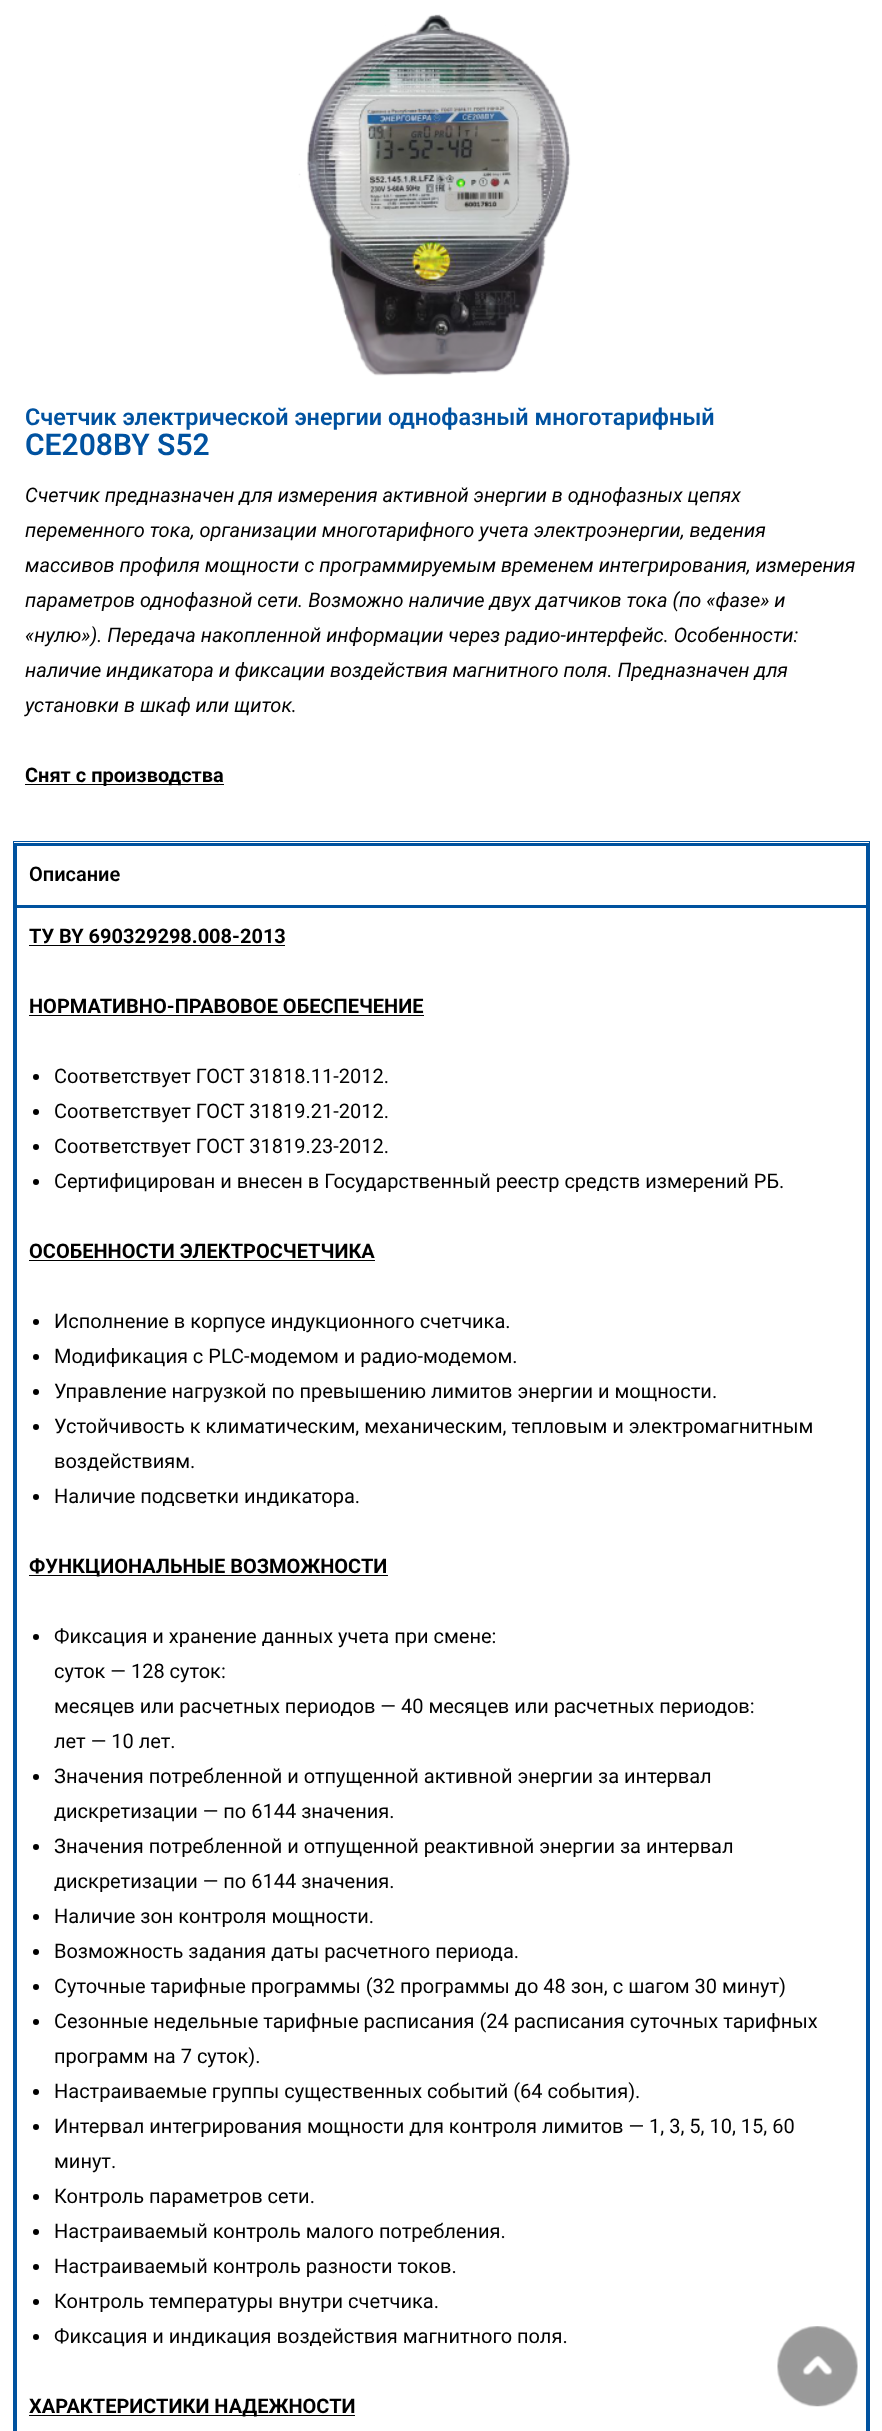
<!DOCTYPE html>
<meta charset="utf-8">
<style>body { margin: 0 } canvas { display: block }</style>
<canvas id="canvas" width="882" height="2431"></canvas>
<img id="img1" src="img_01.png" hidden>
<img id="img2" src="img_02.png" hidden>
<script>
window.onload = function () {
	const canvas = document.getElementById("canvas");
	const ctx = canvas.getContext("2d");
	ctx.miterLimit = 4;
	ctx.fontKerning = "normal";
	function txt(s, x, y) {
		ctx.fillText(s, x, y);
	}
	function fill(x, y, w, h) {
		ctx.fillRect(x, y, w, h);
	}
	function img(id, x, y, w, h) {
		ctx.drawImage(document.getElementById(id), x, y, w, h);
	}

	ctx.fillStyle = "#FFFFFF";
	fill(0, 0, 882, 2431);
	img("img1", 298, 14, 273, 362);
	ctx.fillStyle = "#000000";
	fill(25, 784, 199, 1);
	ctx.strokeStyle = "#0052A0";
	ctx.strokeRect(13.5, 841.5, 856, 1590);
	ctx.fillStyle = "#00529F";
	fill(14, 843, 855, 3);
	fill(866, 843, 3, 62);
	fill(14, 843, 3, 62);
	fill(14, 905, 855, 3);
	fill(866, 905, 3, 1526);
	fill(14, 905, 3, 1526);
	ctx.fillStyle = "#000000";
	fill(29, 945, 256, 1);
	fill(29, 1015, 395, 1);
	ctx.beginPath();
	ctx.arc(36, 1077, 3, 0, Math.PI * 2);
	ctx.fill();
	ctx.beginPath();
	ctx.arc(36, 1112, 3, 0, Math.PI * 2);
	ctx.fill();
	ctx.beginPath();
	ctx.arc(36, 1147, 3, 0, Math.PI * 2);
	ctx.fill();
	ctx.beginPath();
	ctx.arc(36, 1182, 3, 0, Math.PI * 2);
	ctx.fill();
	fill(29, 1260, 346, 1);
	ctx.beginPath();
	ctx.arc(36, 1322, 3, 0, Math.PI * 2);
	ctx.fill();
	ctx.beginPath();
	ctx.arc(36, 1357, 3, 0, Math.PI * 2);
	ctx.fill();
	ctx.beginPath();
	ctx.arc(36, 1392, 3, 0, Math.PI * 2);
	ctx.fill();
	ctx.beginPath();
	ctx.arc(36, 1427, 3, 0, Math.PI * 2);
	ctx.fill();
	ctx.beginPath();
	ctx.arc(36, 1497, 3, 0, Math.PI * 2);
	ctx.fill();
	fill(29, 1575, 359, 1);
	ctx.beginPath();
	ctx.arc(36, 1637, 3, 0, Math.PI * 2);
	ctx.fill();
	ctx.beginPath();
	ctx.arc(36, 1777, 3, 0, Math.PI * 2);
	ctx.fill();
	ctx.beginPath();
	ctx.arc(36, 1847, 3, 0, Math.PI * 2);
	ctx.fill();
	ctx.beginPath();
	ctx.arc(36, 1917, 3, 0, Math.PI * 2);
	ctx.fill();
	ctx.beginPath();
	ctx.arc(36, 1952, 3, 0, Math.PI * 2);
	ctx.fill();
	ctx.beginPath();
	ctx.arc(36, 1987, 3, 0, Math.PI * 2);
	ctx.fill();
	ctx.beginPath();
	ctx.arc(36, 2022, 3, 0, Math.PI * 2);
	ctx.fill();
	ctx.beginPath();
	ctx.arc(36, 2092, 3, 0, Math.PI * 2);
	ctx.fill();
	ctx.beginPath();
	ctx.arc(36, 2127, 3, 0, Math.PI * 2);
	ctx.fill();
	ctx.beginPath();
	ctx.arc(36, 2197, 3, 0, Math.PI * 2);
	ctx.fill();
	ctx.beginPath();
	ctx.arc(36, 2232, 3, 0, Math.PI * 2);
	ctx.fill();
	ctx.beginPath();
	ctx.arc(36, 2267, 3, 0, Math.PI * 2);
	ctx.fill();
	ctx.beginPath();
	ctx.arc(36, 2302, 3, 0, Math.PI * 2);
	ctx.fill();
	ctx.beginPath();
	ctx.arc(36, 2337, 3, 0, Math.PI * 2);
	ctx.fill();
	fill(29, 2415, 326, 1);
	img("img2", 777, 2326, 81, 81);
	ctx.font = "600 23.4px Roboto";
	ctx.fillStyle = "#0052A0";
	txt("Счетчик электрической энергии однофазный многотарифный", 25, 425);
	ctx.font = "600 30px Roboto";
	txt("CE208BY S52", 25, 455);
	ctx.font = "italic 20px Roboto";
	ctx.fillStyle = "#000000";
	txt("Счетчик предназначен для измерения активной энергии в однофазных цепях", 25, 502);
	txt("переменного тока, организации многотарифного учета электроэнергии, ведения", 25, 537);
	txt("массивов профиля мощности с программируемым временем интегрирования, измерения", 25, 572);
	txt("параметров однофазной сети. Возможно наличие двух датчиков тока (по «фазе» и", 25, 607);
	txt("«нулю»). Передача накопленной информации через радио-интерфейс. Особенности:", 25, 642);
	txt("наличие индикатора и фиксации воздействия магнитного поля. Предназначен для", 25, 677);
	txt("установки в шкаф или щиток.", 25, 712);
	ctx.font = "bold 20px Roboto";
	txt("Снят с производства", 25, 782);
	ctx.font = "600 20px Roboto";
	txt("Описание", 29, 881);
	ctx.font = "bold 20px Roboto";
	txt("ТУ BY 690329298.008-2013", 29, 943);
	txt("НОРМАТИВНО-ПРАВОВОЕ ОБЕСПЕЧЕНИЕ", 29, 1013);
	ctx.font = "20px Roboto";
	txt("Соответствует ГОСТ 31818.11-2012.", 54, 1083);
	txt("Соответствует ГОСТ 31819.21-2012.", 54, 1118);
	txt("Соответствует ГОСТ 31819.23-2012.", 54, 1153);
	txt("Сертифицирован и внесен в Государственный реестр средств измерений РБ.", 54, 1188);
	ctx.font = "bold 20px Roboto";
	txt("ОСОБЕННОСТИ ЭЛЕКТРОСЧЕТЧИКА", 29, 1258);
	ctx.font = "20px Roboto";
	txt("Исполнение в корпусе индукционного счетчика.", 54, 1328);
	txt("Модификация с PLC-модемом и радио-модемом.", 54, 1363);
	txt("Управление нагрузкой по превышению лимитов энергии и мощности.", 54, 1398);
	txt("Устойчивость к климатическим, механическим, тепловым и электромагнитным", 54, 1433);
	txt("воздействиям.", 54, 1468);
	txt("Наличие подсветки индикатора.", 54, 1503);
	ctx.font = "bold 20px Roboto";
	txt("ФУНКЦИОНАЛЬНЫЕ ВОЗМОЖНОСТИ", 29, 1573);
	ctx.font = "20px Roboto";
	txt("Фиксация и хранение данных учета при смене:", 54, 1643);
	txt("суток — 128 суток:", 54, 1678);
	txt("месяцев или расчетных периодов — 40 месяцев или расчетных периодов:", 54, 1713);
	txt("лет — 10 лет.", 54, 1748);
	txt("Значения потребленной и отпущенной активной энергии за интервал", 54, 1783);
	txt("дискретизации — по 6144 значения.", 54, 1818);
	txt("Значения потребленной и отпущенной реактивной энергии за интервал", 54, 1853);
	txt("дискретизации — по 6144 значения.", 54, 1888);
	txt("Наличие зон контроля мощности.", 54, 1923);
	txt("Возможность задания даты расчетного периода.", 54, 1958);
	txt("Суточные тарифные программы (32 программы до 48 зон, с шагом 30 минут)", 54, 1993);
	txt("Сезонные недельные тарифные расписания (24 расписания суточных тарифных", 54, 2028);
	txt("программ на 7 суток).", 54, 2063);
	txt("Настраиваемые группы существенных событий (64 события).", 54, 2098);
	txt("Интервал интегрирования мощности для контроля лимитов — 1, 3, 5, 10, 15, 60", 54, 2133);
	txt("минут.", 54, 2168);
	txt("Контроль параметров сети.", 54, 2203);
	txt("Настраиваемый контроль малого потребления.", 54, 2238);
	txt("Настраиваемый контроль разности токов.", 54, 2273);
	txt("Контроль температуры внутри счетчика.", 54, 2308);
	txt("Фиксация и индикация воздействия магнитного поля.", 54, 2343);
	ctx.font = "bold 20px Roboto";
	txt("ХАРАКТЕРИСТИКИ НАДЕЖНОСТИ", 29, 2413);
};
</script>
